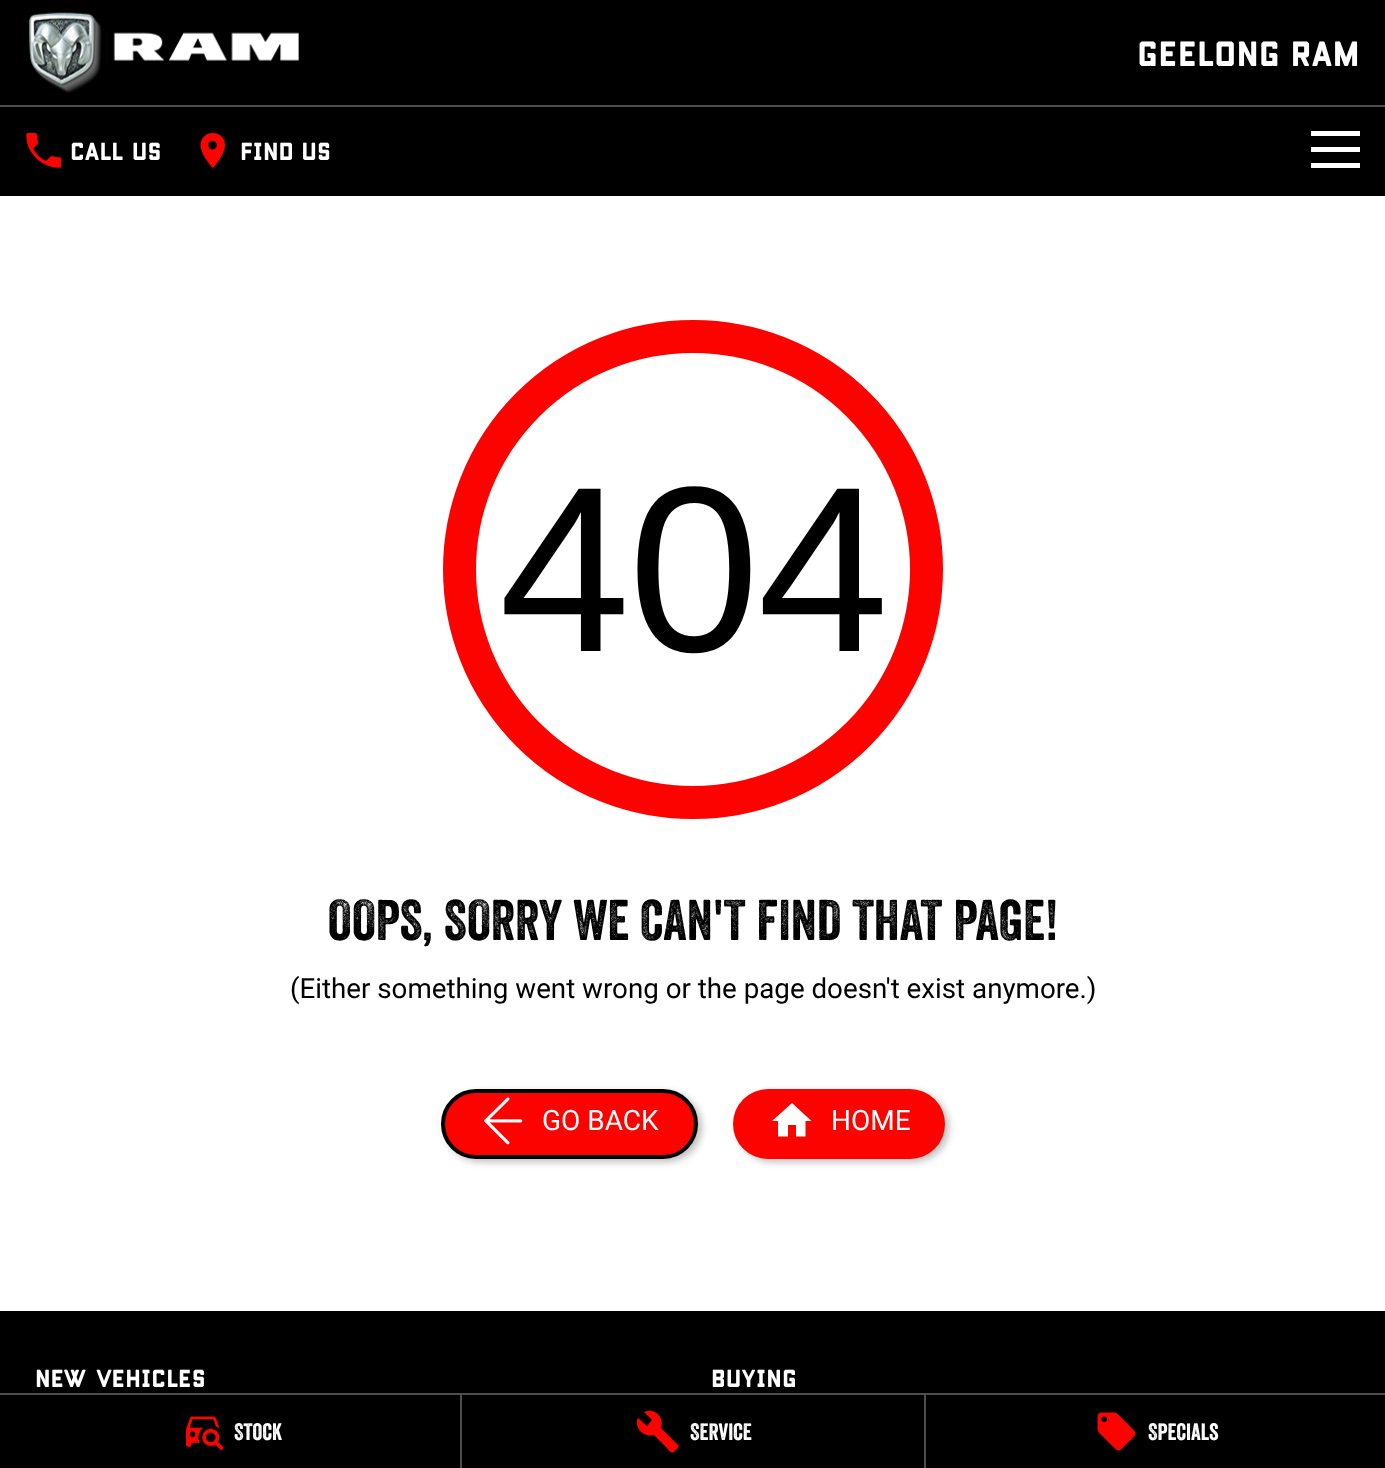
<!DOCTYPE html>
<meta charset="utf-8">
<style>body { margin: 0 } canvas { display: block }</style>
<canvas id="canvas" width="1385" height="1468"></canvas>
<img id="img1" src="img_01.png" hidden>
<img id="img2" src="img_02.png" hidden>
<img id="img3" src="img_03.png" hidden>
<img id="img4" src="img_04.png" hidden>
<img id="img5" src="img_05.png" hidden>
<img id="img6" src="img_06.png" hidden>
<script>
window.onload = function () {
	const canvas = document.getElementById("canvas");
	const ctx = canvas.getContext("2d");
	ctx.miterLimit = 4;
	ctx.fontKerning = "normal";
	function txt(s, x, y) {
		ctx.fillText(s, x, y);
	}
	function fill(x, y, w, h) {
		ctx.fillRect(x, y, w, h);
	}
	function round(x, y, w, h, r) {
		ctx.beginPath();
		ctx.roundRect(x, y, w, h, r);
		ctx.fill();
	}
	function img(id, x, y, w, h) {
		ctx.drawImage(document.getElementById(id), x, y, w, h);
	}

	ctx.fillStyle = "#FFFFFF";
	fill(0, 0, 1385, 1468);
	ctx.fillStyle = "#000000";
	fill(0, 0, 1385, 105);
	ctx.fillStyle = "#4D4D4D";
	fill(0, 105, 1385, 2);
	img("img1", 29, 12, 270, 81);
	ctx.fillStyle = "#000000";
	fill(0, 107, 1385, 89);
	img("img2", 26, 133, 35, 35);
	img("img3", 200, 133, 25, 35);
	ctx.fillStyle = "#FFFFFF";
	fill(1311, 131, 49, 5);
	fill(1311, 147, 49, 5);
	fill(1311, 163, 49, 5);
	ctx.beginPath();
	ctx.roundRect(459.5, 336.5, 467, 466, 233);
	ctx.strokeStyle = "#FD0300";
	ctx.lineWidth = 33;
	ctx.stroke();
	ctx.fillStyle = "rgba(0, 0, 0, 0.25)";
	ctx.filter = "blur(3.5px)";
	ctx.beginPath();
	ctx.roundRect(445, 1092, 257, 70, 35);
	ctx.fill();
	ctx.filter = "none";
	ctx.fillStyle = "#FD0300";
	ctx.beginPath();
	ctx.roundRect(443, 1091, 253, 66, 33);
	ctx.fill();
	ctx.strokeStyle = "#000000";
	ctx.lineWidth = 4;
	ctx.stroke();
	img("img4", 484, 1097, 39, 48);
	ctx.fillStyle = "rgba(0, 0, 0, 0.25)";
	ctx.filter = "blur(3.5px)";
	ctx.beginPath();
	ctx.roundRect(737, 1092, 212, 70, 35);
	ctx.fill();
	ctx.filter = "none";
	ctx.fillStyle = "#FD0300";
	round(733, 1089, 212, 70, 35);
	ctx.fillStyle = "#FFFFFF";
	ctx.beginPath();
	ctx.moveTo(788, 1136.5);
	ctx.lineTo(788, 1125);
	ctx.lineTo(796, 1125);
	ctx.lineTo(796, 1136.5);
	ctx.lineTo(805.5, 1136.5);
	ctx.lineTo(805.5, 1121);
	ctx.lineTo(811.5, 1121);
	ctx.lineTo(792, 1103);
	ctx.lineTo(772, 1121);
	ctx.lineTo(778, 1121);
	ctx.lineTo(778, 1136.5);
	ctx.closePath();
	ctx.fill();
	ctx.fillStyle = "#000000";
	fill(0, 1311, 1385, 157);
	ctx.fillStyle = "#4D4D4D";
	fill(0, 1393, 1385, 2);
	fill(460, 1395, 2, 73);
	img("img5", 185, 1416, 39, 35);
	fill(924, 1395, 2, 73);
	ctx.fillStyle = "#FD0300";
	ctx.beginPath();
	ctx.moveTo(678, 1445);
	ctx.lineTo(661, 1428);
	ctx.bezierCurveTo(665, 1417, 654, 1407, 644, 1412);
	ctx.lineTo(652, 1420);
	ctx.lineTo(647, 1426);
	ctx.lineTo(638, 1418);
	ctx.bezierCurveTo(633, 1427, 644, 1438, 654, 1435);
	ctx.lineTo(665, 1446);
	ctx.bezierCurveTo(669, 1450, 671, 1455, 675, 1451);
	ctx.bezierCurveTo(676, 1450, 680, 1446, 678, 1445);
	ctx.closePath();
	ctx.fill();
	img("img6", 1097, 1412, 39, 39);
	ctx.font = "35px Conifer";
	ctx.fillStyle = "#FFFFFF";
	txt("Geelong RAM", 1137, 66);
	ctx.font = "24.5px Conifer";
	txt("CALL US", 70, 160);
	txt("FIND US", 240, 160);
	ctx.letterSpacing = "-2px";
	ctx.font = "236px Liberation Sans";
	ctx.fillStyle = "#000000";
	txt("404", 499, 651);
	ctx.letterSpacing = "0px";
	ctx.font = "55.5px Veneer";
	txt("OOPS, SORRY WE CAN'T FIND THAT PAGE!", 328, 940);
	ctx.font = "27.75px Roboto";
	txt("(Either something went wrong or the page doesn't exist anymore.)", 290, 998);
	ctx.font = "28px Roboto";
	ctx.fillStyle = "#FFFFFF";
	txt("GO BACK", 542, 1130);
	txt("HOME", 831, 1130);
	ctx.font = "24.5px Conifer";
	txt("NEW VEHICLES", 35, 1387);
	txt("BUYING", 711, 1387);
	ctx.font = "23px Veneer";
	txt("Stock", 234, 1440);
	txt("Service", 690, 1440);
	txt("Specials", 1148, 1440);
};
</script>
